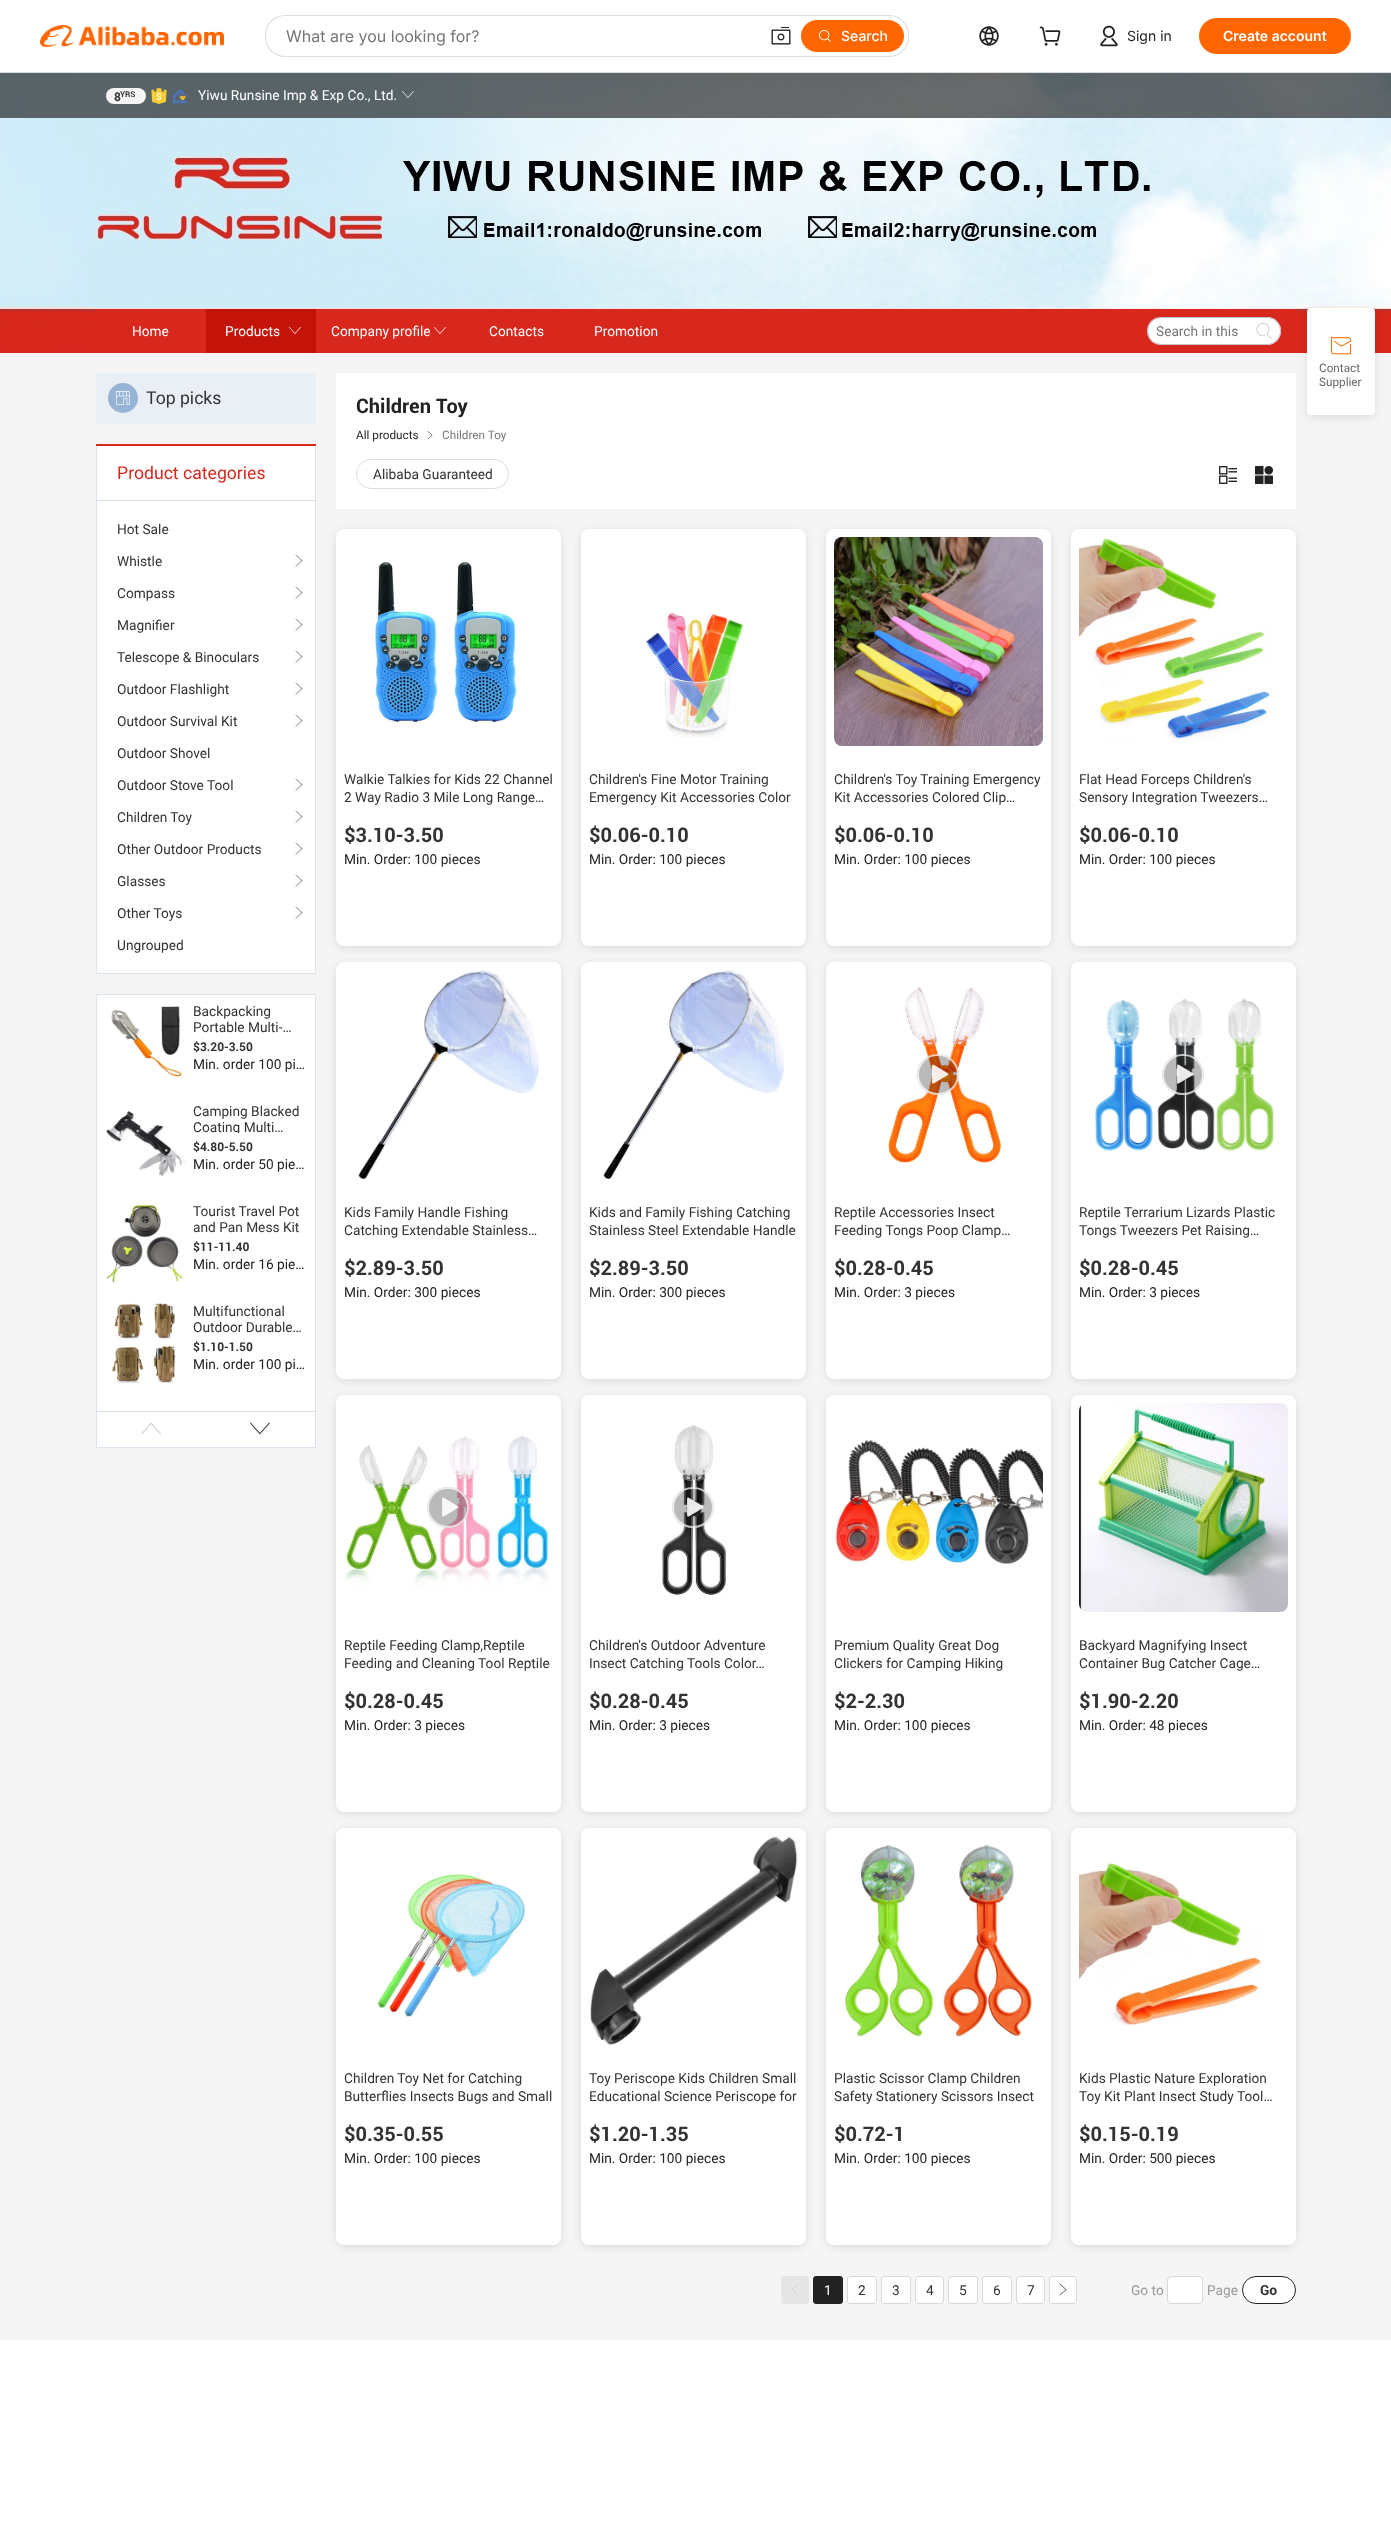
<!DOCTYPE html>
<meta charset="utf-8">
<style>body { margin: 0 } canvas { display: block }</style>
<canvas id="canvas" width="1391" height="2539"></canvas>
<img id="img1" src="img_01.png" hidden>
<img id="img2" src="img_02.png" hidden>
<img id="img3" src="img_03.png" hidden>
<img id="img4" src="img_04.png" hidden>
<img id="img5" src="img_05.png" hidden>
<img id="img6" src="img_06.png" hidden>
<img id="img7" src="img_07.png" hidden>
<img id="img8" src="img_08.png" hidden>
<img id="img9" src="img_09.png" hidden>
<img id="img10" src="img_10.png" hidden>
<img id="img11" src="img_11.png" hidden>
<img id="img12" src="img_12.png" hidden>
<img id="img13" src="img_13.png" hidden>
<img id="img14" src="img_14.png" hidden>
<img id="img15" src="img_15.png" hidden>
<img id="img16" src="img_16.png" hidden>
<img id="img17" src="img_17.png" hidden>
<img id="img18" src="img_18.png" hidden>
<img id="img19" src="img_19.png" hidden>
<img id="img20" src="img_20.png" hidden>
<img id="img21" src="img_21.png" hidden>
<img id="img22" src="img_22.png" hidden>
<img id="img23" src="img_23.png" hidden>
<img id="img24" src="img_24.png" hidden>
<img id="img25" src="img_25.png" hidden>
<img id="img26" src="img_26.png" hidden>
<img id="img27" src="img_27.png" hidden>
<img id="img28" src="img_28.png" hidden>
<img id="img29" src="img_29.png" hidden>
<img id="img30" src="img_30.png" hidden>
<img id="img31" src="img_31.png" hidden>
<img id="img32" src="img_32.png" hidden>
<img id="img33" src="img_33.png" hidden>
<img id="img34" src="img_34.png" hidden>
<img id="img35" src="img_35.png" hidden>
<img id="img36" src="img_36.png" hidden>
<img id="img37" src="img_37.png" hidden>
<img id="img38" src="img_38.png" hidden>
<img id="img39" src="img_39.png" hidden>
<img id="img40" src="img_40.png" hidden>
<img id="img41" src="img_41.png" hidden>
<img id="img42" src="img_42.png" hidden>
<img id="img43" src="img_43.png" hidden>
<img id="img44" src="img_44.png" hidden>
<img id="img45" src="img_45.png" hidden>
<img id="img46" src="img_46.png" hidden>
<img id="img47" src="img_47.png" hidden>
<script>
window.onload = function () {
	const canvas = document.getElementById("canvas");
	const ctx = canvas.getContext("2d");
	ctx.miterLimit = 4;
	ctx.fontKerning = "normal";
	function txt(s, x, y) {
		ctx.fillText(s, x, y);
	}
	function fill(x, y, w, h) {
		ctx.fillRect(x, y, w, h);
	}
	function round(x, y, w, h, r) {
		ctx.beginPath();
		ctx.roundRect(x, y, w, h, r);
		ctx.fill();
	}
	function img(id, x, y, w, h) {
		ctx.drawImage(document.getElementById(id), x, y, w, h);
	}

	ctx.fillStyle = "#FFFFFF";
	fill(0, 0, 1391, 2539);
	ctx.fillStyle = "#DDDDDD";
	fill(0, 72, 1391, 1);
	img("img1", 40, 25, 184, 22);
	round(265, 15, 644, 42, 20);
	ctx.fillStyle = "#FFFFFF";
	round(266, 16, 642, 40, 19);
	img("img2", 771, 27, 20, 18);
	ctx.fillStyle = "#FF6600";
	round(801, 20, 103, 32, 16);
	img("img3", 819, 30, 12, 12);
	img("img4", 979, 26, 20, 20);
	img("img5", 1039, 26, 22, 20);
	img("img6", 1100, 25, 18, 22);
	round(1199, 18, 152, 36, 18);
	img("img7", 0, 73, 1391, 280);
	img("img8", 96, 73, 1200, 236);
	ctx.fillStyle = "rgba(51, 51, 51, 0.2)";
	fill(0, 73, 1391, 45);
	ctx.fillStyle = "rgba(0, 0, 0, 0.5)";
	fill(0, 73, 1391, 45);
	ctx.fillStyle = "#F5F5F5";
	round(106, 88, 40, 16, 8);
	img("img9", 151, 88, 16, 16);
	img("img10", 172, 89, 16, 15);
	img("img11", 402, 91, 12, 7);
	ctx.fillStyle = "#D8271D";
	fill(96, 309, 1200, 44);
	ctx.fillStyle = "#C41309";
	fill(206, 309, 110, 44);
	img("img12", 289, 327, 12, 7);
	img("img13", 434, 327, 12, 7);
	ctx.fillStyle = "#C4C6CF";
	ctx.beginPath();
	ctx.moveTo(1161, 317);
	ctx.lineTo(1248, 317);
	ctx.lineTo(1248, 345);
	ctx.lineTo(1161, 345);
	ctx.bezierCurveTo(1153, 345, 1147, 339, 1147, 331);
	ctx.bezierCurveTo(1147, 323, 1153, 317, 1161, 317);
	ctx.closePath();
	ctx.moveTo(1161, 318);
	ctx.lineTo(1248, 318);
	ctx.lineTo(1248, 344);
	ctx.lineTo(1161, 344);
	ctx.bezierCurveTo(1154, 344, 1148, 338, 1148, 331);
	ctx.bezierCurveTo(1148, 324, 1154, 318, 1161, 318);
	ctx.closePath();
	ctx.fill("evenodd");
	ctx.fillStyle = "#FFFFFF";
	ctx.beginPath();
	ctx.roundRect(1148, 318, 100, 26, [13, 0.5, 0.5, 13]);
	ctx.fill();
	ctx.beginPath();
	ctx.roundRect(1248, 317, 33, 28, [0, 14, 14, 0]);
	ctx.fill();
	ctx.fillStyle = "#C4C6CF";
	ctx.beginPath();
	ctx.moveTo(1248, 317);
	ctx.lineTo(1267, 317);
	ctx.bezierCurveTo(1274.5, 317, 1281, 323.5, 1281, 331);
	ctx.bezierCurveTo(1281, 338.5, 1274.5, 345, 1267, 345);
	ctx.lineTo(1248, 345);
	ctx.closePath();
	ctx.moveTo(1248, 318);
	ctx.lineTo(1267, 318);
	ctx.bezierCurveTo(1274, 318, 1280, 324, 1280, 331);
	ctx.bezierCurveTo(1280, 338, 1274, 344, 1267, 344);
	ctx.lineTo(1248, 344);
	ctx.closePath();
	ctx.fill("evenodd");
	img("img14", 1256, 323, 16, 16);
	ctx.fillStyle = "#F5F5F5";
	fill(0, 353, 1391, 1987);
	ctx.fillStyle = "#E9EFF5";
	fill(96, 373, 220, 51);
	ctx.fillStyle = "#97B3D5";
	ctx.beginPath();
	ctx.arc(123, 398, 15, 0, Math.PI * 2);
	ctx.fill();
	img("img15", 116, 391, 14, 14);
	ctx.fillStyle = "#FFFFFF";
	fill(97, 446, 218, 527);
	ctx.fillStyle = "#D8271D";
	fill(96, 444, 220, 2);
	ctx.fillStyle = "#DBE3EF";
	fill(315, 446, 1, 528);
	fill(96, 973, 220, 1);
	fill(96, 446, 1, 528);
	fill(97, 500, 218, 1);
	img("img16", 295, 554, 8, 13);
	img("img16", 295, 586, 8, 13);
	img("img16", 295, 618, 8, 13);
	img("img16", 295, 650, 8, 13);
	img("img16", 295, 682, 8, 13);
	img("img16", 295, 714, 8, 13);
	img("img16", 295, 778, 8, 13);
	img("img16", 295, 810, 8, 13);
	img("img16", 295, 842, 8, 13);
	img("img16", 295, 874, 8, 13);
	img("img16", 295, 906, 8, 13);
	ctx.fillStyle = "#FFFFFF";
	ctx.beginPath();
	ctx.rect(96.5, 994.5, 219, 453);
	ctx.fill();
	ctx.strokeStyle = "#DBE3EF";
	ctx.stroke();
	img("img17", 111, 1006, 71, 71);
	img("img18", 106, 1111, 79, 66);
	img("img19", 106, 1203, 79, 80);
	img("img20", 111, 1303, 65, 80);
	ctx.fillStyle = "#DBE3EF";
	fill(97, 1411, 218, 1);
	img("img21", 141, 1422, 20, 13);
	img("img22", 250, 1422, 20, 13);
	ctx.fillStyle = "#FFFFFF";
	fill(336, 373, 960, 136);
	img("img23", 427, 431, 6, 9);
	ctx.beginPath();
	ctx.roundRect(356.5, 459.5, 152, 29, 14.5);
	ctx.strokeStyle = "#DDDDDD";
	ctx.stroke();
	img("img24", 1219, 466, 18, 18);
	img("img25", 1255, 466, 18, 18);
	ctx.fillStyle = "rgba(0, 0, 0, 0.1)";
	ctx.filter = "blur(4px)";
	ctx.beginPath();
	ctx.roundRect(336, 531, 225, 417, 8);
	ctx.fill();
	ctx.filter = "none";
	ctx.fillStyle = "#FFFFFF";
	round(336, 529, 225, 417, 8);
	img("img26", 375, 561, 143, 162);
	ctx.fillStyle = "rgba(0, 0, 0, 0.1)";
	ctx.filter = "blur(4px)";
	ctx.beginPath();
	ctx.roundRect(581, 531, 225, 417, 8);
	ctx.fill();
	ctx.filter = "none";
	ctx.fillStyle = "#FFFFFF";
	round(581, 529, 225, 417, 8);
	img("img27", 645, 612, 99, 126);
	ctx.fillStyle = "rgba(0, 0, 0, 0.1)";
	ctx.filter = "blur(4px)";
	ctx.beginPath();
	ctx.roundRect(826, 531, 225, 417, 8);
	ctx.fill();
	ctx.filter = "none";
	ctx.fillStyle = "#FFFFFF";
	round(826, 529, 225, 417, 8);
	img("img28", 834, 537, 209, 209);
	ctx.fillStyle = "rgba(0, 0, 0, 0.1)";
	ctx.filter = "blur(4px)";
	ctx.beginPath();
	ctx.roundRect(1071, 531, 225, 417, 8);
	ctx.fill();
	ctx.filter = "none";
	ctx.fillStyle = "#FFFFFF";
	round(1071, 529, 225, 417, 8);
	img("img29", 1079, 538, 191, 203);
	ctx.fillStyle = "rgba(0, 0, 0, 0.1)";
	ctx.filter = "blur(4px)";
	ctx.beginPath();
	ctx.roundRect(336, 964, 225, 417, 8);
	ctx.fill();
	ctx.filter = "none";
	ctx.fillStyle = "#FFFFFF";
	round(336, 962, 225, 417, 8);
	img("img30", 358, 970, 182, 209);
	ctx.fillStyle = "rgba(0, 0, 0, 0.1)";
	ctx.filter = "blur(4px)";
	ctx.beginPath();
	ctx.roundRect(581, 964, 225, 417, 8);
	ctx.fill();
	ctx.filter = "none";
	ctx.fillStyle = "#FFFFFF";
	round(581, 962, 225, 417, 8);
	img("img30", 603, 970, 182, 209);
	ctx.fillStyle = "rgba(0, 0, 0, 0.1)";
	ctx.filter = "blur(4px)";
	ctx.beginPath();
	ctx.roundRect(826, 964, 225, 417, 8);
	ctx.fill();
	ctx.filter = "none";
	ctx.fillStyle = "#FFFFFF";
	round(826, 962, 225, 417, 8);
	img("img31", 834, 970, 209, 209);
	ctx.fillStyle = "rgba(0, 0, 0, 0.27)";
	round(917, 1054, 42, 41, 20.5);
	ctx.beginPath();
	ctx.roundRect(918, 1055, 40, 39, 19.5);
	ctx.strokeStyle = "rgba(255, 255, 255, 0.72)";
	ctx.lineWidth = 2;
	ctx.stroke();
	img("img32", 932, 1064, 17, 20);
	ctx.fillStyle = "rgba(0, 0, 0, 0.1)";
	ctx.filter = "blur(4px)";
	ctx.beginPath();
	ctx.roundRect(1071, 964, 225, 417, 8);
	ctx.fill();
	ctx.filter = "none";
	ctx.fillStyle = "#FFFFFF";
	round(1071, 962, 225, 417, 8);
	img("img33", 1079, 970, 209, 209);
	ctx.fillStyle = "rgba(0, 0, 0, 0.27)";
	round(1162, 1054, 42, 41, 20.5);
	ctx.beginPath();
	ctx.roundRect(1163, 1055, 40, 39, 19.5);
	ctx.stroke();
	img("img34", 1177, 1064, 17, 20);
	ctx.fillStyle = "rgba(0, 0, 0, 0.1)";
	ctx.filter = "blur(4px)";
	ctx.beginPath();
	ctx.roundRect(336, 1397, 225, 417, 8);
	ctx.fill();
	ctx.filter = "none";
	ctx.fillStyle = "#FFFFFF";
	round(336, 1395, 225, 417, 8);
	img("img35", 344, 1403, 209, 209);
	ctx.fillStyle = "rgba(0, 0, 0, 0.27)";
	round(427, 1487, 42, 41, 20.5);
	ctx.beginPath();
	ctx.roundRect(428, 1488, 40, 39, 19.5);
	ctx.stroke();
	img("img36", 442, 1497, 17, 20);
	ctx.fillStyle = "rgba(0, 0, 0, 0.1)";
	ctx.filter = "blur(4px)";
	ctx.beginPath();
	ctx.roundRect(581, 1397, 225, 417, 8);
	ctx.fill();
	ctx.filter = "none";
	ctx.fillStyle = "#FFFFFF";
	round(581, 1395, 225, 417, 8);
	img("img37", 589, 1403, 209, 209);
	ctx.fillStyle = "rgba(0, 0, 0, 0.27)";
	round(672, 1487, 42, 41, 20.5);
	ctx.beginPath();
	ctx.roundRect(673, 1488, 40, 39, 19.5);
	ctx.stroke();
	img("img38", 687, 1497, 17, 20);
	ctx.fillStyle = "rgba(0, 0, 0, 0.1)";
	ctx.filter = "blur(4px)";
	ctx.beginPath();
	ctx.roundRect(826, 1397, 225, 417, 8);
	ctx.fill();
	ctx.filter = "none";
	ctx.fillStyle = "#FFFFFF";
	round(826, 1395, 225, 417, 8);
	img("img39", 835, 1439, 208, 126);
	ctx.fillStyle = "rgba(0, 0, 0, 0.1)";
	ctx.filter = "blur(4px)";
	ctx.beginPath();
	ctx.roundRect(1071, 1397, 225, 417, 8);
	ctx.fill();
	ctx.filter = "none";
	ctx.fillStyle = "#FFFFFF";
	round(1071, 1395, 225, 417, 8);
	img("img40", 1079, 1403, 209, 209);
	ctx.fillStyle = "rgba(0, 0, 0, 0.1)";
	ctx.filter = "blur(4px)";
	ctx.beginPath();
	ctx.roundRect(336, 1830, 225, 417, 8);
	ctx.fill();
	ctx.filter = "none";
	ctx.fillStyle = "#FFFFFF";
	round(336, 1828, 225, 417, 8);
	img("img41", 377, 1874, 149, 143);
	ctx.fillStyle = "rgba(0, 0, 0, 0.1)";
	ctx.filter = "blur(4px)";
	ctx.beginPath();
	ctx.roundRect(581, 1830, 225, 417, 8);
	ctx.fill();
	ctx.filter = "none";
	ctx.fillStyle = "#FFFFFF";
	round(581, 1828, 225, 417, 8);
	img("img42", 590, 1836, 208, 209);
	ctx.fillStyle = "rgba(0, 0, 0, 0.1)";
	ctx.filter = "blur(4px)";
	ctx.beginPath();
	ctx.roundRect(826, 1830, 225, 417, 8);
	ctx.fill();
	ctx.filter = "none";
	ctx.fillStyle = "#FFFFFF";
	round(826, 1828, 225, 417, 8);
	img("img43", 844, 1844, 189, 194);
	ctx.fillStyle = "rgba(0, 0, 0, 0.1)";
	ctx.filter = "blur(4px)";
	ctx.beginPath();
	ctx.roundRect(1071, 1830, 225, 417, 8);
	ctx.fill();
	ctx.filter = "none";
	ctx.fillStyle = "#FFFFFF";
	round(1071, 1828, 225, 417, 8);
	img("img44", 1079, 1862, 182, 164);
	ctx.fillStyle = "#E6E6E6";
	ctx.beginPath();
	ctx.roundRect(781.5, 2276.5, 27, 27, 2.5);
	ctx.fill();
	ctx.strokeStyle = "#E6E6E6";
	ctx.lineWidth = 1;
	ctx.stroke();
	img("img45", 791, 2283, 8, 13);
	ctx.fillStyle = "#222222";
	ctx.beginPath();
	ctx.roundRect(813.5, 2276.5, 29, 27, 2.5);
	ctx.fill();
	ctx.strokeStyle = "#222222";
	ctx.stroke();
	ctx.fillStyle = "#FFFFFF";
	ctx.beginPath();
	ctx.roundRect(847.5, 2276.5, 29, 27, 2.5);
	ctx.fill();
	ctx.strokeStyle = "#D8D8D8";
	ctx.stroke();
	ctx.beginPath();
	ctx.roundRect(881.5, 2276.5, 29, 27, 2.5);
	ctx.fill();
	ctx.stroke();
	ctx.beginPath();
	ctx.roundRect(915.5, 2276.5, 28, 27, 2.5);
	ctx.fill();
	ctx.stroke();
	ctx.beginPath();
	ctx.roundRect(948.5, 2276.5, 29, 27, 2.5);
	ctx.fill();
	ctx.stroke();
	ctx.beginPath();
	ctx.roundRect(982.5, 2276.5, 29, 27, 2.5);
	ctx.fill();
	ctx.stroke();
	ctx.beginPath();
	ctx.roundRect(1016.5, 2276.5, 28, 27, 2.5);
	ctx.fill();
	ctx.stroke();
	ctx.beginPath();
	ctx.roundRect(1049.5, 2276.5, 27, 27, 2.5);
	ctx.fill();
	ctx.stroke();
	img("img46", 1059, 2283, 8, 13);
	ctx.beginPath();
	ctx.roundRect(1167.5, 2276.5, 35, 27, 3.5);
	ctx.fill();
	ctx.stroke();
	ctx.beginPath();
	ctx.roundRect(1242.5, 2276.5, 53, 27, 13.5);
	ctx.fill();
	ctx.strokeStyle = "#222222";
	ctx.stroke();
	ctx.fillStyle = "rgba(0, 0, 0, 0.1)";
	ctx.filter = "blur(5px)";
	ctx.beginPath();
	ctx.roundRect(1307, 310, 68, 107, 4);
	ctx.fill();
	ctx.filter = "none";
	ctx.fillStyle = "#FFFFFF";
	round(1307, 308, 68, 107, 4);
	img("img47", 1331, 337, 20, 18);
	ctx.font = "16px Inter";
	ctx.fillStyle = "#767676";
	txt("What are you looking for?", 286, 42);
	ctx.font = "500 14px Inter";
	ctx.fillStyle = "#FFFFFF";
	txt("Search", 841, 41);
	ctx.font = "14px Inter";
	ctx.fillStyle = "#222222";
	txt("Sign in", 1127, 41);
	ctx.font = "600 14px Inter";
	ctx.fillStyle = "#FFFFFF";
	txt("Create account", 1223, 41);
	ctx.font = "bold 12px Roboto";
	ctx.fillStyle = "#333333";
	txt("8", 114, 101);
	ctx.font = "bold 8px Roboto";
	txt("YRS", 120, 97);
	ctx.font = "14px Roboto";
	ctx.fillStyle = "#FFFFFF";
	txt("Yiwu Runsine Imp & Exp Co., Ltd.", 198, 100);
	txt("Home", 132, 336);
	txt("Products", 225, 336);
	txt("Company profile", 331, 336);
	txt("Contacts", 489, 336);
	txt("Promotion", 594, 336);
	ctx.fillStyle = "#767676";
	txt("Search in this", 1156, 336);
	ctx.font = "18px Roboto";
	ctx.fillStyle = "#333333";
	txt("Top picks", 146, 404);
	ctx.fillStyle = "#D8271D";
	txt("Product categories", 117, 479);
	ctx.font = "14px Roboto";
	ctx.fillStyle = "#333333";
	txt("Hot Sale", 117, 534);
	txt("Whistle", 117, 566);
	txt("Compass", 117, 598);
	txt("Magnifier", 117, 630);
	txt("Telescope & Binoculars", 117, 662);
	txt("Outdoor Flashlight", 117, 694);
	txt("Outdoor Survival Kit", 117, 726);
	txt("Outdoor Shovel", 117, 758);
	txt("Outdoor Stove Tool", 117, 790);
	txt("Children Toy", 117, 822);
	txt("Other Outdoor Products", 117, 854);
	txt("Glasses", 117, 886);
	txt("Other Toys", 117, 918);
	txt("Ungrouped", 117, 950);
	txt("Backpacking", 193, 1016);
	txt("Portable Multi-…", 193, 1032);
	ctx.font = "bold 12px Roboto";
	txt("$3.20-3.50", 193, 1051);
	ctx.font = "14px Roboto";
	ctx.fillStyle = "#222222";
	txt("Min. order 100 pi…", 193, 1069);
	ctx.fillStyle = "#333333";
	txt("Camping Blacked", 193, 1116);
	ctx.save();
	ctx.beginPath();
	ctx.rect(193, 1103, 114, 30);
	ctx.clip();
	txt("Coating Multi…", 193, 1132);
	ctx.restore();
	ctx.font = "bold 12px Roboto";
	txt("$4.80-5.50", 193, 1151);
	ctx.font = "14px Roboto";
	ctx.fillStyle = "#222222";
	txt("Min. order 50 pie…", 193, 1169);
	ctx.fillStyle = "#333333";
	txt("Tourist Travel Pot", 193, 1216);
	txt("and Pan Mess Kit", 193, 1232);
	ctx.font = "bold 12px Roboto";
	txt("$11-11.40", 193, 1251);
	ctx.font = "14px Roboto";
	ctx.fillStyle = "#222222";
	txt("Min. order 16 pie…", 193, 1269);
	ctx.fillStyle = "#333333";
	txt("Multifunctional", 193, 1316);
	txt("Outdoor Durable…", 193, 1332);
	ctx.font = "bold 12px Roboto";
	txt("$1.10-1.50", 193, 1351);
	ctx.font = "14px Roboto";
	ctx.fillStyle = "#222222";
	txt("Min. order 100 pi…", 193, 1369);
	ctx.font = "bold 20px Roboto";
	txt("Children Toy", 356, 413);
	ctx.font = "12px Roboto";
	txt("All products", 356, 439);
	ctx.fillStyle = "#767676";
	txt("Children Toy", 442, 439);
	ctx.font = "14px Roboto";
	ctx.fillStyle = "#333333";
	txt("Alibaba Guaranteed", 373, 479);
	txt("Walkie Talkies for Kids 22 Channel", 344, 784);
	txt("2 Way Radio 3 Mile Long Range…", 344, 802);
	ctx.font = "bold 20px Roboto";
	txt("$3.10-3.50", 344, 842);
	ctx.font = "14px Roboto";
	ctx.fillStyle = "#222222";
	txt("Min. Order: 100 pieces", 344, 864);
	ctx.fillStyle = "#333333";
	txt("Children's Fine Motor Training", 589, 784);
	txt("Emergency Kit Accessories Color", 589, 802);
	ctx.font = "bold 20px Roboto";
	txt("$0.06-0.10", 589, 842);
	ctx.font = "14px Roboto";
	ctx.fillStyle = "#222222";
	txt("Min. Order: 100 pieces", 589, 864);
	ctx.fillStyle = "#333333";
	txt("Children's Toy Training Emergency", 834, 784);
	txt("Kit Accessories Colored Clip…", 834, 802);
	ctx.font = "bold 20px Roboto";
	txt("$0.06-0.10", 834, 842);
	ctx.font = "14px Roboto";
	ctx.fillStyle = "#222222";
	txt("Min. Order: 100 pieces", 834, 864);
	ctx.fillStyle = "#333333";
	txt("Flat Head Forceps Children's", 1079, 784);
	txt("Sensory Integration Tweezers…", 1079, 802);
	ctx.font = "bold 20px Roboto";
	txt("$0.06-0.10", 1079, 842);
	ctx.font = "14px Roboto";
	ctx.fillStyle = "#222222";
	txt("Min. Order: 100 pieces", 1079, 864);
	ctx.fillStyle = "#333333";
	txt("Kids Family Handle Fishing", 344, 1217);
	txt("Catching Extendable Stainless…", 344, 1235);
	ctx.font = "bold 20px Roboto";
	txt("$2.89-3.50", 344, 1275);
	ctx.font = "14px Roboto";
	ctx.fillStyle = "#222222";
	txt("Min. Order: 300 pieces", 344, 1297);
	ctx.fillStyle = "#333333";
	txt("Kids and Family Fishing Catching", 589, 1217);
	txt("Stainless Steel Extendable Handle", 589, 1235);
	ctx.font = "bold 20px Roboto";
	txt("$2.89-3.50", 589, 1275);
	ctx.font = "14px Roboto";
	ctx.fillStyle = "#222222";
	txt("Min. Order: 300 pieces", 589, 1297);
	ctx.fillStyle = "#333333";
	txt("Reptile Accessories Insect", 834, 1217);
	txt("Feeding Tongs Poop Clamp…", 834, 1235);
	ctx.font = "bold 20px Roboto";
	txt("$0.28-0.45", 834, 1275);
	ctx.font = "14px Roboto";
	ctx.fillStyle = "#222222";
	txt("Min. Order: 3 pieces", 834, 1297);
	ctx.fillStyle = "#333333";
	txt("Reptile Terrarium Lizards Plastic", 1079, 1217);
	txt("Tongs Tweezers Pet Raising…", 1079, 1235);
	ctx.font = "bold 20px Roboto";
	txt("$0.28-0.45", 1079, 1275);
	ctx.font = "14px Roboto";
	ctx.fillStyle = "#222222";
	txt("Min. Order: 3 pieces", 1079, 1297);
	ctx.fillStyle = "#333333";
	txt("Reptile Feeding Clamp,Reptile", 344, 1650);
	txt("Feeding and Cleaning Tool Reptile", 344, 1668);
	ctx.font = "bold 20px Roboto";
	txt("$0.28-0.45", 344, 1708);
	ctx.font = "14px Roboto";
	ctx.fillStyle = "#222222";
	txt("Min. Order: 3 pieces", 344, 1730);
	ctx.fillStyle = "#333333";
	txt("Children's Outdoor Adventure", 589, 1650);
	txt("Insect Catching Tools Color…", 589, 1668);
	ctx.font = "bold 20px Roboto";
	txt("$0.28-0.45", 589, 1708);
	ctx.font = "14px Roboto";
	ctx.fillStyle = "#222222";
	txt("Min. Order: 3 pieces", 589, 1730);
	ctx.fillStyle = "#333333";
	txt("Premium Quality Great Dog", 834, 1650);
	txt("Clickers for Camping Hiking", 834, 1668);
	ctx.font = "bold 20px Roboto";
	txt("$2-2.30", 834, 1708);
	ctx.font = "14px Roboto";
	ctx.fillStyle = "#222222";
	txt("Min. Order: 100 pieces", 834, 1730);
	ctx.fillStyle = "#333333";
	txt("Backyard Magnifying Insect", 1079, 1650);
	txt("Container Bug Catcher Cage…", 1079, 1668);
	ctx.font = "bold 20px Roboto";
	txt("$1.90-2.20", 1079, 1708);
	ctx.font = "14px Roboto";
	ctx.fillStyle = "#222222";
	txt("Min. Order: 48 pieces", 1079, 1730);
	ctx.fillStyle = "#333333";
	txt("Children Toy Net for Catching", 344, 2083);
	txt("Butterflies Insects Bugs and Small", 344, 2101);
	ctx.font = "bold 20px Roboto";
	txt("$0.35-0.55", 344, 2141);
	ctx.font = "14px Roboto";
	ctx.fillStyle = "#222222";
	txt("Min. Order: 100 pieces", 344, 2163);
	ctx.fillStyle = "#333333";
	txt("Toy Periscope Kids Children Small", 589, 2083);
	txt("Educational Science Periscope for", 589, 2101);
	ctx.font = "bold 20px Roboto";
	txt("$1.20-1.35", 589, 2141);
	ctx.font = "14px Roboto";
	ctx.fillStyle = "#222222";
	txt("Min. Order: 100 pieces", 589, 2163);
	ctx.fillStyle = "#333333";
	txt("Plastic Scissor Clamp Children", 834, 2083);
	txt("Safety Stationery Scissors Insect", 834, 2101);
	ctx.font = "bold 20px Roboto";
	txt("$0.72-1", 834, 2141);
	ctx.font = "14px Roboto";
	ctx.fillStyle = "#222222";
	txt("Min. Order: 100 pieces", 834, 2163);
	ctx.fillStyle = "#333333";
	txt("Kids Plastic Nature Exploration", 1079, 2083);
	txt("Toy Kit Plant Insect Study Tool…", 1079, 2101);
	ctx.font = "bold 20px Roboto";
	txt("$0.15-0.19", 1079, 2141);
	ctx.font = "14px Roboto";
	ctx.fillStyle = "#222222";
	txt("Min. Order: 500 pieces", 1079, 2163);
	ctx.fillStyle = "#FFFFFF";
	txt("1", 824, 2295);
	ctx.fillStyle = "#333333";
	txt("2", 858, 2295);
	txt("3", 892, 2295);
	txt("4", 926, 2295);
	txt("5", 959, 2295);
	txt("6", 993, 2295);
	txt("7", 1027, 2295);
	ctx.fillStyle = "#999999";
	txt("Go to", 1131, 2295);
	txt("Page", 1207, 2295);
	ctx.font = "bold 14px Roboto";
	ctx.fillStyle = "#333333";
	txt("Go", 1260, 2295);
	ctx.font = "12px Roboto";
	ctx.fillStyle = "#666666";
	txt("Contact", 1319, 372);
	txt("Supplier", 1319, 386);
};
</script>
